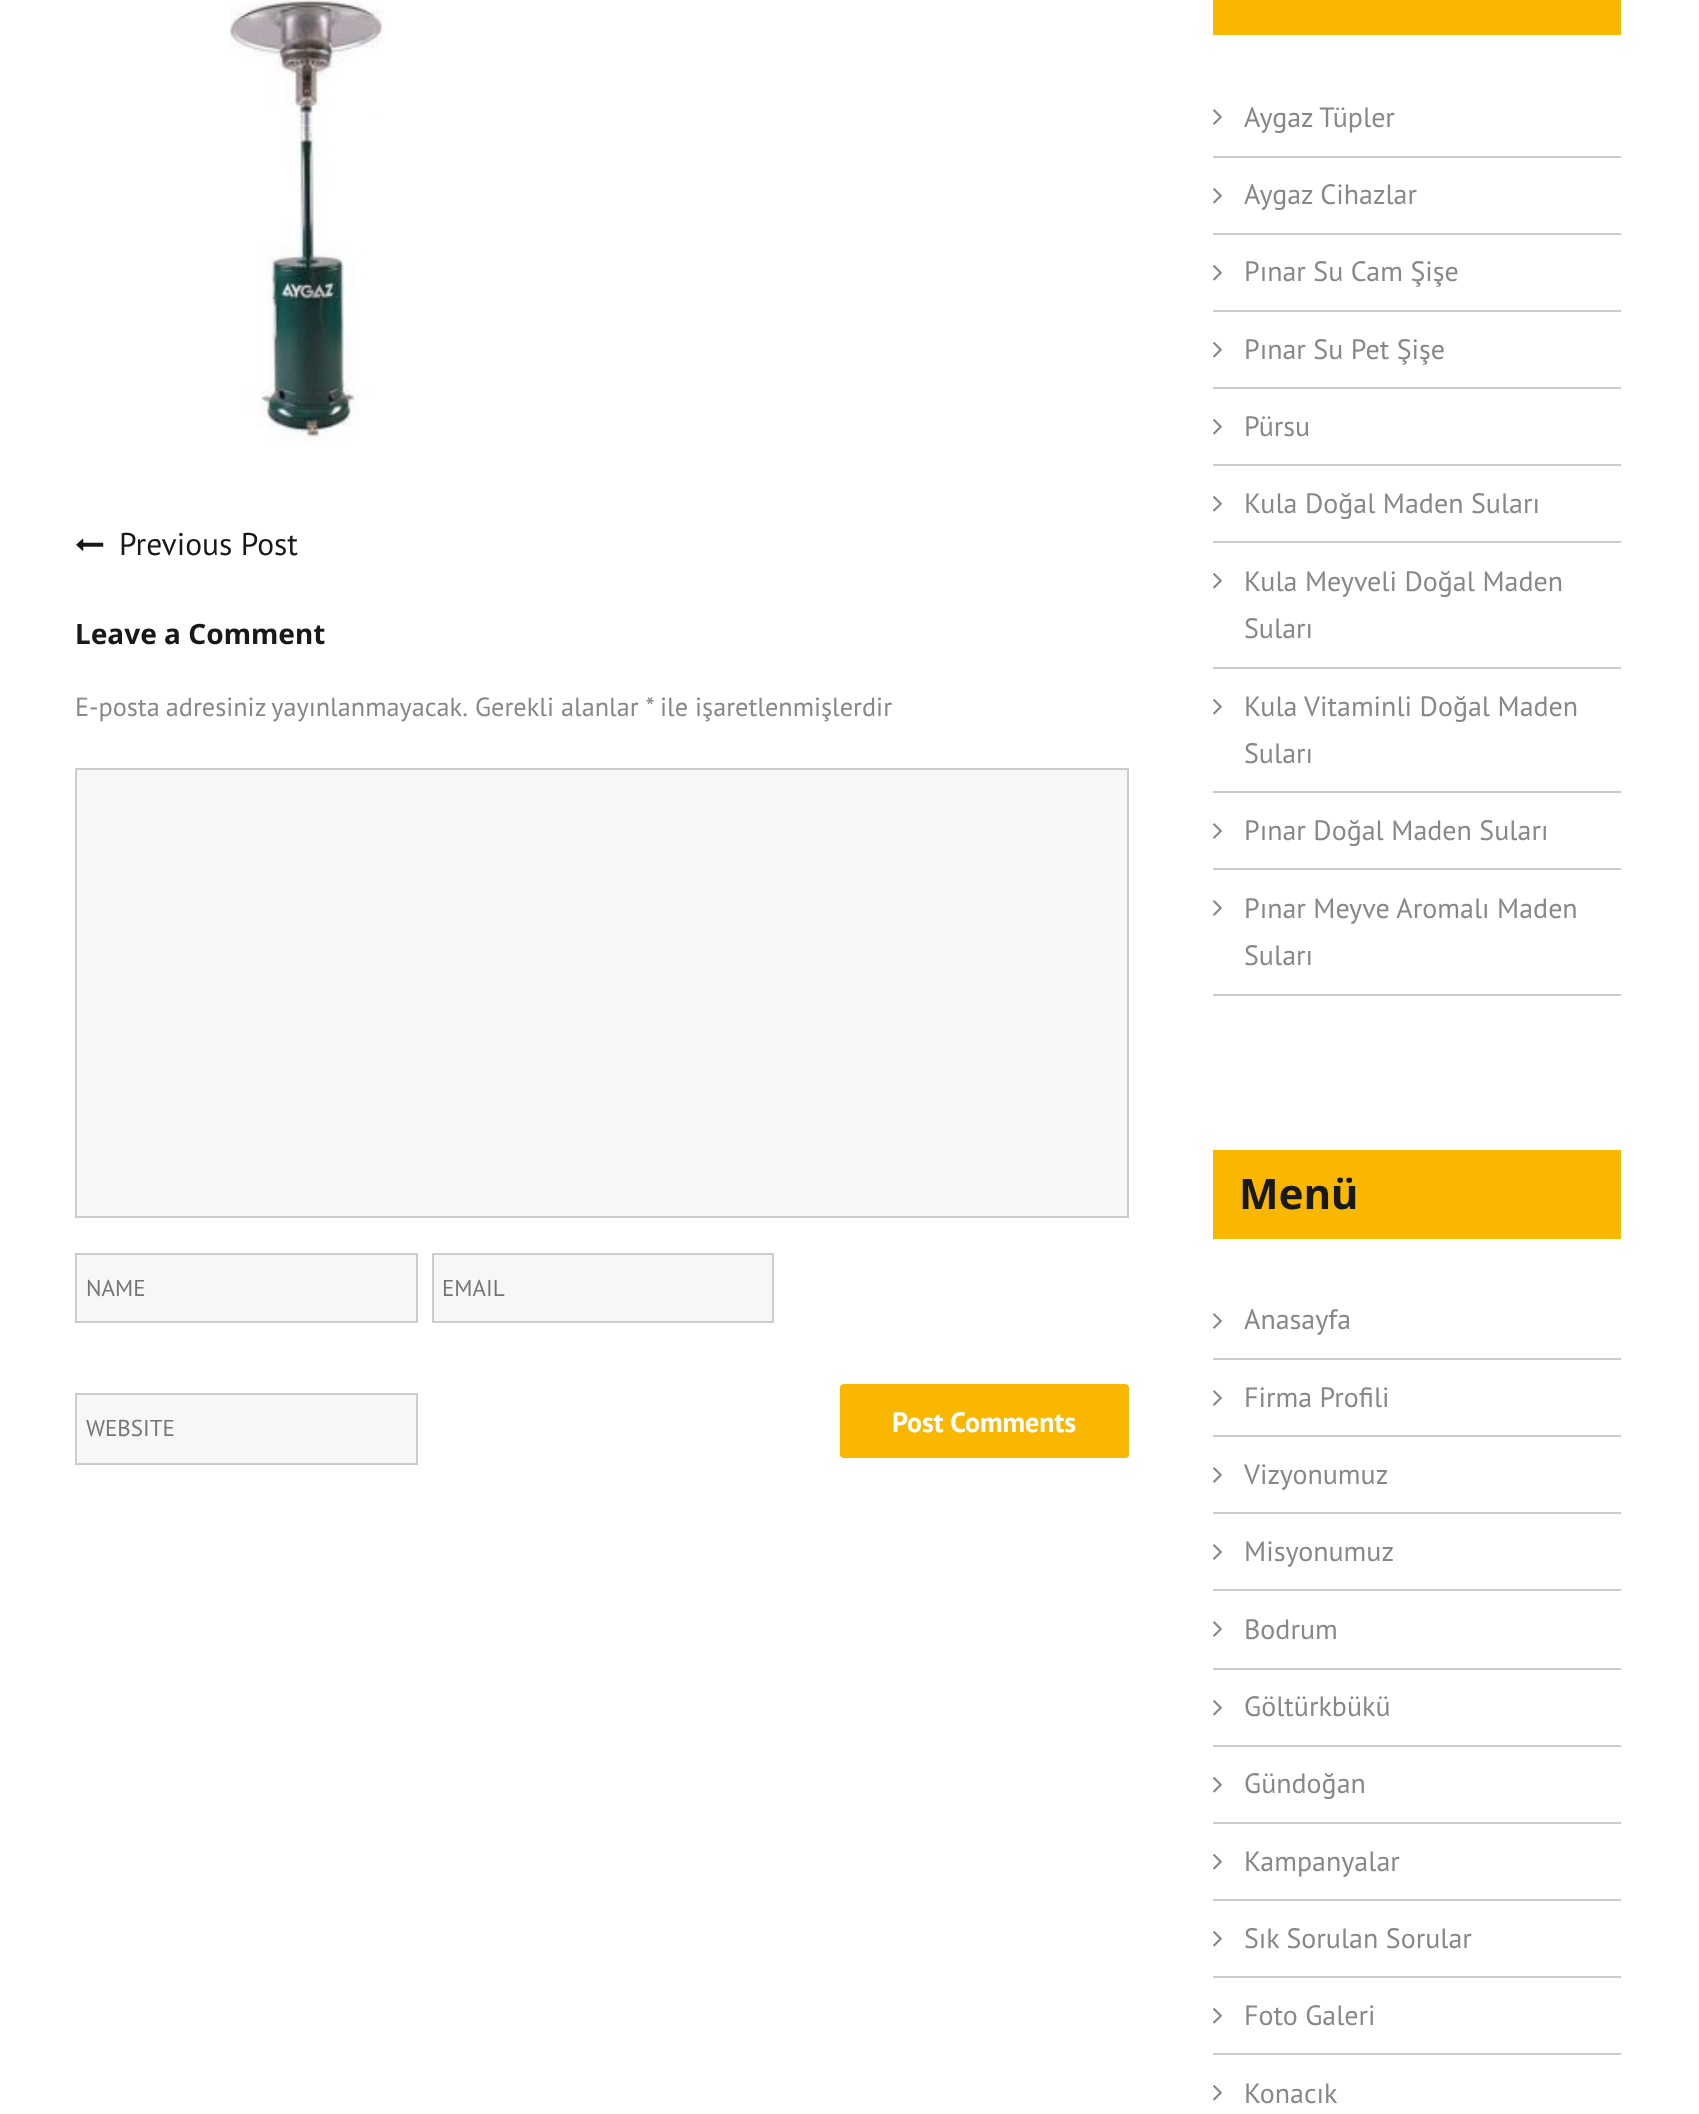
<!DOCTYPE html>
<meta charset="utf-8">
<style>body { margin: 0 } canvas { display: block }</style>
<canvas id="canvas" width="1699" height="2114"></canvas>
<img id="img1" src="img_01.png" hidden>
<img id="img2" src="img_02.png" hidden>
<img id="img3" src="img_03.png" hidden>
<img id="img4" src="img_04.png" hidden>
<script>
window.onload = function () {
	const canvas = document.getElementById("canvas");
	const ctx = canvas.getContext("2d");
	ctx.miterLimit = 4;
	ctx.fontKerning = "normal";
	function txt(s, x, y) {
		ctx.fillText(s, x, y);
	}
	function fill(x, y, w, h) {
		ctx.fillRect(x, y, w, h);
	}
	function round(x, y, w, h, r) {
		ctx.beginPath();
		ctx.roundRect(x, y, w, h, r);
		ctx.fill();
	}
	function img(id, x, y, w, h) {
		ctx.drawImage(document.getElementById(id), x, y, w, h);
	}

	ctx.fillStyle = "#FFFFFF";
	fill(0, 0, 1699, 2114);
	img("img1", 228, 0, 156, 442);
	img("img2", 76, 538, 28, 13);
	ctx.fillStyle = "#F7F7F7";
	ctx.beginPath();
	ctx.rect(76, 769, 1052, 448);
	ctx.fill();
	ctx.strokeStyle = "#CCCCCC";
	ctx.lineWidth = 2;
	ctx.stroke();
	ctx.beginPath();
	ctx.rect(76, 1254, 341, 68);
	ctx.fill();
	ctx.stroke();
	ctx.beginPath();
	ctx.rect(433, 1254, 340, 68);
	ctx.fill();
	ctx.stroke();
	ctx.beginPath();
	ctx.rect(76, 1394, 341, 70);
	ctx.fill();
	ctx.stroke();
	ctx.fillStyle = "#FAB702";
	round(840, 1384, 289, 74, 4);
	fill(1213, 0, 408, 35);
	ctx.fillStyle = "#CCCCCC";
	fill(1213, 156, 408, 2);
	img("img3", 1213, 109, 9, 16);
	fill(1213, 233, 408, 2);
	img("img4", 1213, 188, 9, 16);
	fill(1213, 310, 408, 2);
	img("img4", 1213, 265, 9, 16);
	fill(1213, 387, 408, 2);
	img("img4", 1213, 342, 9, 16);
	fill(1213, 464, 408, 2);
	img("img4", 1213, 419, 9, 16);
	fill(1213, 541, 408, 2);
	img("img4", 1213, 496, 9, 16);
	fill(1213, 667, 408, 2);
	img("img4", 1213, 573, 9, 16);
	fill(1213, 791, 408, 2);
	img("img4", 1213, 699, 9, 16);
	fill(1213, 868, 408, 2);
	img("img3", 1213, 823, 9, 16);
	fill(1213, 994, 408, 2);
	img("img3", 1213, 900, 9, 16);
	ctx.fillStyle = "#FAB702";
	fill(1213, 1150, 408, 89);
	ctx.fillStyle = "#CCCCCC";
	fill(1213, 1358, 408, 2);
	img("img3", 1213, 1313, 9, 16);
	fill(1213, 1435, 408, 2);
	img("img3", 1213, 1390, 9, 16);
	fill(1213, 1512, 408, 2);
	img("img3", 1213, 1467, 9, 16);
	fill(1213, 1589, 408, 2);
	img("img3", 1213, 1544, 9, 16);
	fill(1213, 1668, 408, 2);
	img("img3", 1213, 1621, 9, 16);
	fill(1213, 1745, 408, 2);
	img("img4", 1213, 1700, 9, 16);
	fill(1213, 1822, 408, 2);
	img("img4", 1213, 1777, 9, 16);
	fill(1213, 1899, 408, 2);
	img("img4", 1213, 1854, 9, 16);
	fill(1213, 1976, 408, 2);
	img("img4", 1213, 1931, 9, 16);
	fill(1213, 2053, 408, 2);
	img("img4", 1213, 2008, 9, 16);
	img("img4", 1213, 2085, 9, 16);
	ctx.font = "31.5px PT Sans";
	ctx.fillStyle = "#18191B";
	txt("Previous Post", 119, 555);
	ctx.font = "bold 28px Noto Sans";
	txt("Leave a Comment", 75, 644);
	ctx.wordSpacing = "-1px";
	ctx.font = "26.25px PT Sans";
	ctx.fillStyle = "#888888";
	txt("E-posta adresiniz yayınlanmayacak.", 75, 716);
	ctx.wordSpacing = "0px";
	txt("Gerekli alanlar *", 475, 716);
	txt("ile işaretlenmişlerdir", 660, 716);
	ctx.font = "23px PT Sans";
	ctx.fillStyle = "#757575";
	txt("NAME", 86, 1296);
	txt("EMAIL", 442, 1296);
	txt("WEBSITE", 86, 1436);
	ctx.font = "bold 28px PT Sans";
	ctx.fillStyle = "#FFFFFF";
	txt("Post Comments", 892, 1432);
	ctx.font = "28px PT Sans";
	ctx.fillStyle = "#888888";
	txt("Aygaz Tüpler", 1244, 127);
	txt("Aygaz Cihazlar", 1244, 204);
	txt("Pınar Su Cam Şişe", 1244, 281);
	txt("Pınar Su Pet Şişe", 1244, 359);
	txt("Pürsu", 1244, 436);
	txt("Kula Doğal Maden Suları", 1244, 513);
	txt("Kula Meyveli Doğal Maden", 1244, 591);
	txt("Suları", 1244, 638);
	txt("Kula Vitaminli Doğal Maden", 1244, 716);
	txt("Suları", 1244, 763);
	txt("Pınar Doğal Maden Suları", 1244, 840);
	txt("Pınar Meyve Aromalı Maden", 1244, 918);
	txt("Suları", 1244, 965);
	ctx.font = "bold 42px Noto Sans";
	ctx.fillStyle = "#18191B";
	txt("Menü", 1239, 1209);
	ctx.font = "28px PT Sans";
	ctx.fillStyle = "#888888";
	txt("Anasayfa", 1244, 1329);
	txt("Firma Profili", 1244, 1407);
	txt("Vizyonumuz", 1244, 1484);
	txt("Misyonumuz", 1244, 1561);
	txt("Bodrum", 1244, 1639);
	txt("Göltürkbükü", 1244, 1716);
	txt("Gündoğan", 1244, 1793);
	txt("Kampanyalar", 1244, 1871);
	txt("Sık Sorulan Sorular", 1244, 1948);
	txt("Foto Galeri", 1244, 2025);
	txt("Konacık", 1244, 2103);
};
</script>
